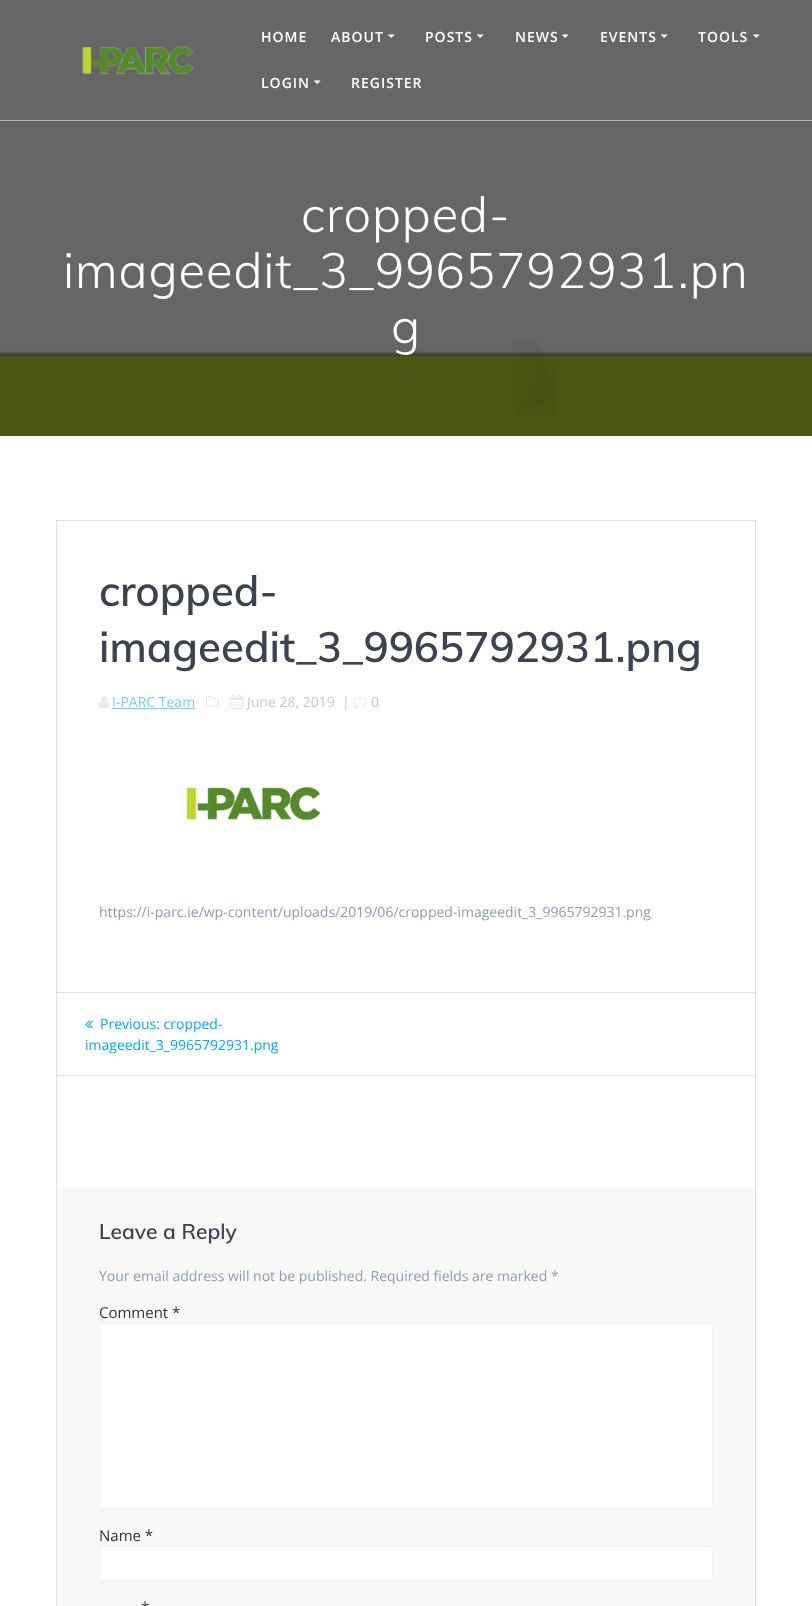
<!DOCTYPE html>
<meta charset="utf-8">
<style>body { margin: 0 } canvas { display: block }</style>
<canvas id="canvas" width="812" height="1606"></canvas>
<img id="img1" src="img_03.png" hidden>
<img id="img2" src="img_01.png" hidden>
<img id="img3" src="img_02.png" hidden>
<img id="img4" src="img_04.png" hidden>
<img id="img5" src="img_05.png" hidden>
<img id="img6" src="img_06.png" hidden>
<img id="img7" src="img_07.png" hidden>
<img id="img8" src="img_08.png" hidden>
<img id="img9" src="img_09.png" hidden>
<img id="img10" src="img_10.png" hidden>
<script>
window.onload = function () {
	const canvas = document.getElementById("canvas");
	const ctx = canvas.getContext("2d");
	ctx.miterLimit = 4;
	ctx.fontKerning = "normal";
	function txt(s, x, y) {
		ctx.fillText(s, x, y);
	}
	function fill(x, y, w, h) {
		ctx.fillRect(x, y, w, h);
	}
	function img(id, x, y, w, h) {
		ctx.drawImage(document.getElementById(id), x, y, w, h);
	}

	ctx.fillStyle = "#FFFFFF";
	fill(0, 0, 812, 1606);
	img("img1", 0, 0, 812, 436);
	ctx.fillStyle = "#B2B2B2";
	fill(0, 120, 812, 1);
	img("img2", 82, 46, 112, 29);
	img("img3", 388, 34, 7, 4);
	img("img3", 477, 34, 7, 4);
	img("img3", 562, 34, 7, 4);
	img("img3", 661, 34, 7, 4);
	img("img3", 753, 34, 7, 4);
	img("img3", 314, 80, 7, 4);
	img("img4", 513, 341, 44, 77);
	ctx.strokeStyle = "#E0E1E1";
	ctx.strokeRect(56.5, 520.5, 699, 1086);
	img("img5", 99, 696, 10, 12);
	ctx.fillStyle = "#74D0F9";
	fill(112, 708, 83, 1);
	img("img6", 206, 696, 13, 11);
	img("img7", 230, 695, 13, 14);
	img("img8", 353, 697, 14, 12);
	img("img9", 186, 786, 135, 35);
	ctx.fillStyle = "#E0E1E1";
	fill(57, 992, 698, 1);
	fill(57, 1075, 698, 1);
	img("img10", 85, 1020, 8, 9);
	ctx.fillStyle = "#F8F8F8";
	fill(57, 1188, 698, 418);
	ctx.fillStyle = "#FFFFFF";
	ctx.beginPath();
	ctx.roundRect(99.5, 1323.5, 613, 185, 2.5);
	ctx.fill();
	ctx.strokeStyle = "#F1F1F1";
	ctx.stroke();
	ctx.beginPath();
	ctx.roundRect(99.5, 1546.5, 613, 34, 2.5);
	ctx.fill();
	ctx.stroke();
	ctx.letterSpacing = "1px";
	ctx.font = "600 14px Open Sans";
	txt("HOME", 261, 42);
	txt("ABOUT", 331, 42);
	txt("POSTS", 425, 42);
	txt("NEWS", 515, 42);
	txt("EVENTS", 600, 42);
	txt("TOOLS", 698, 42);
	txt("LOGIN", 261, 88);
	txt("REGISTER", 351, 88);
	ctx.letterSpacing = "0.9px";
	ctx.font = "300 49px Muli";
	txt("cropped-", 301, 232);
	txt("imageedit_3_9965792931.pn", 63, 288);
	txt("g", 391, 344);
	ctx.letterSpacing = "0px";
	ctx.font = "600 42px Muli";
	ctx.fillStyle = "#3C424F";
	txt("cropped-", 99, 606);
	txt("imageedit_3_9965792931.png", 99, 662);
	ctx.font = "14px Open Sans";
	ctx.fillStyle = "#74D0F9";
	txt("I-PARC Team", 112, 707);
	ctx.fillStyle = "#C1C9D2";
	txt("June 28, 2019", 247, 707);
	txt("|", 342, 707);
	txt("0", 371, 707);
	ctx.fillStyle = "#8E9DAE";
	txt("https://i-parc.ie/wp-content/uploads/2019/06/cropped-imageedit_3_9965792931.png", 99, 917);
	ctx.fillStyle = "#03A9F4";
	txt("Previous: cropped-", 100, 1029);
	txt("imageedit_3_9965792931.png", 85, 1050);
	ctx.font = "600 21px Muli";
	ctx.fillStyle = "#3C424F";
	txt("Leave a Reply", 99, 1239);
	ctx.font = "14px Open Sans";
	ctx.fillStyle = "#8E9DAE";
	txt("Your email address will not be published. Required fields are marked *", 99, 1281);
	ctx.font = "15px Open Sans";
	ctx.fillStyle = "#313439";
	txt("Comment *", 99, 1318);
	txt("Name *", 99, 1541);
	txt("*", 141, 1613);
};
</script>
